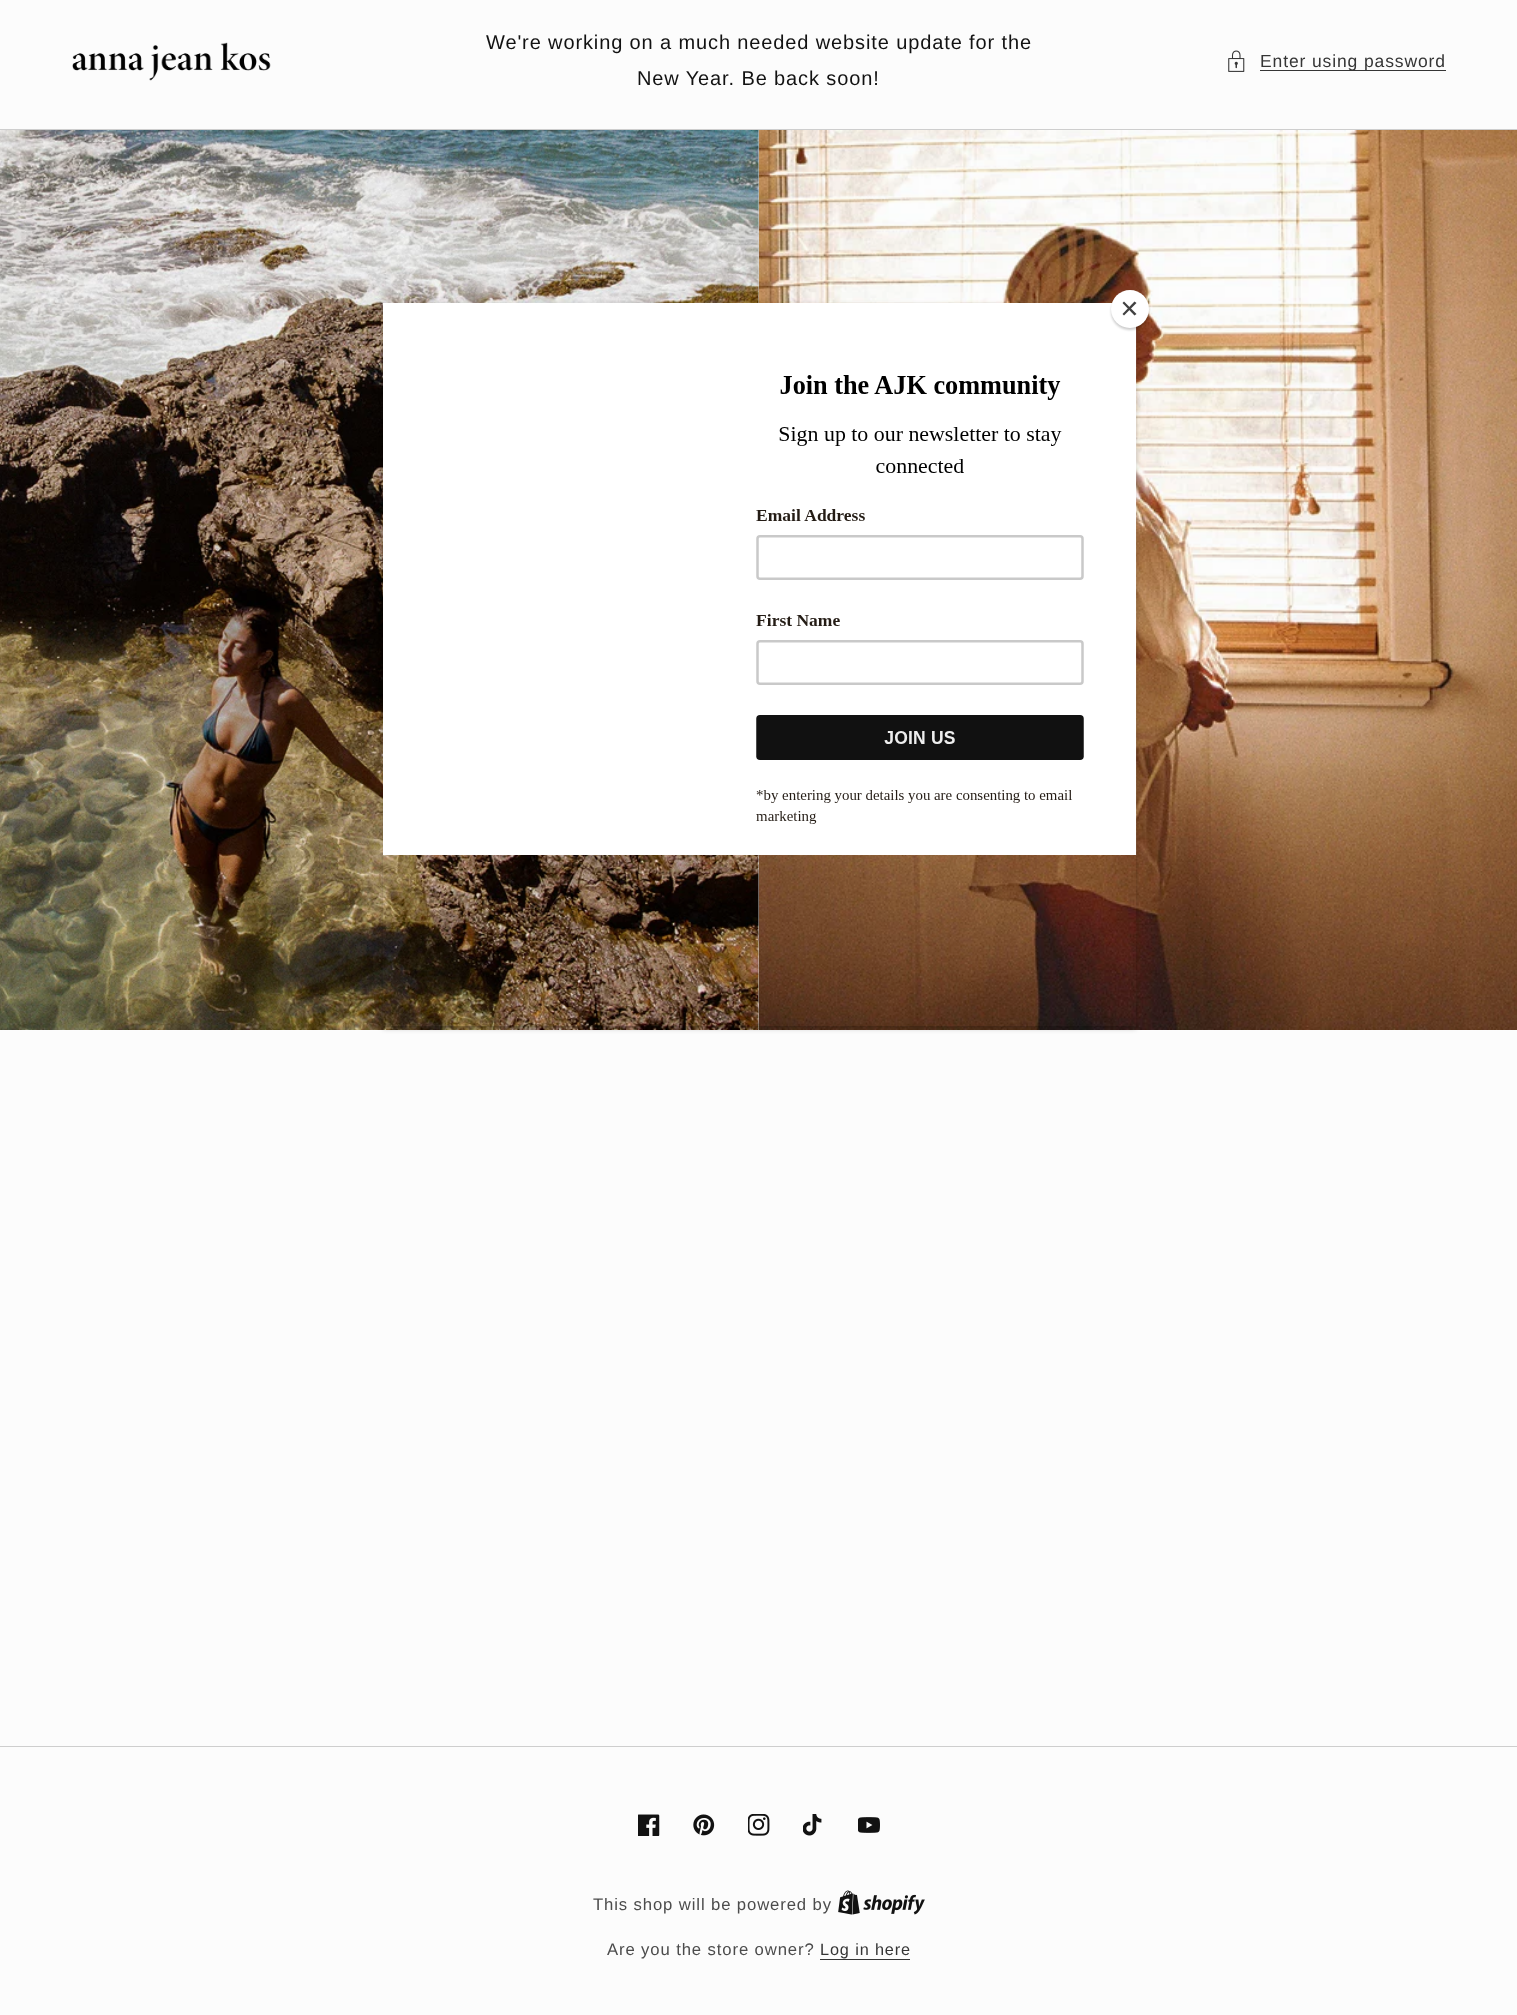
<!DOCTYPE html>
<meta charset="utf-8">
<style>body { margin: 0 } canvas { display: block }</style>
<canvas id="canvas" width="1517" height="2015"></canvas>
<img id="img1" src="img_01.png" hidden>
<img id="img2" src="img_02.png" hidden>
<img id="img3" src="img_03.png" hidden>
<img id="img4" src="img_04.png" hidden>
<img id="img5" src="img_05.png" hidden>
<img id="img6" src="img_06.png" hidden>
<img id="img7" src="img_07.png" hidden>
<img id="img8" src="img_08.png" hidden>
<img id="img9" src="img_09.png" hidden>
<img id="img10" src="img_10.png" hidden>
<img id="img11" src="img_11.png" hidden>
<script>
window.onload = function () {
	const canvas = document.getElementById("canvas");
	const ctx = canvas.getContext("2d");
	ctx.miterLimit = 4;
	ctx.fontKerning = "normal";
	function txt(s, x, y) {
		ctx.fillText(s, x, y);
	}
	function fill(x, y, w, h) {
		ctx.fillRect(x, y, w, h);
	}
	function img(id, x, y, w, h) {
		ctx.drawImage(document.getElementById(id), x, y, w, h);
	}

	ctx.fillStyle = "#FCFCFC";
	fill(0, 0, 1517, 2015);
	img("img1", 72, 42, 199, 39);
	img("img2", 1228, 50, 17, 22);
	ctx.fillStyle = "#353535";
	fill(1260, 70, 186, 1);
	ctx.fillStyle = "#CECECE";
	fill(0, 129, 1517, 1);
	ctx.fillStyle = "#E6E6E6";
	fill(758, 130, 1, 900);
	img("img3", 0, 130, 759, 900);
	img("img4", 758, 130, 759, 900);
	ctx.save();
	ctx.beginPath();
	ctx.moveTo(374, 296);
	ctx.lineTo(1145, 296);
	ctx.lineTo(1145, 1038);
	ctx.lineTo(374, 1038);
	ctx.closePath();
	ctx.moveTo(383, 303);
	ctx.lineTo(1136, 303);
	ctx.lineTo(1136, 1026);
	ctx.lineTo(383, 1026);
	ctx.closePath();
	ctx.clip("evenodd");
	ctx.fillStyle = "rgba(0, 0, 0, 0.2)";
	ctx.filter = "blur(2.5px)";
	ctx.beginPath();
	ctx.rect(383, 305, 753, 724);
	ctx.fill();
	ctx.filter = "none";
	ctx.restore();
	img("img5", 383, 303, 754, 552);
	ctx.fillStyle = "rgba(0, 0, 0, 0.2)";
	ctx.filter = "blur(1px)";
	ctx.beginPath();
	ctx.roundRect(1111, 293, 38, 37, 18.5);
	ctx.fill();
	ctx.filter = "none";
	ctx.fillStyle = "#FFFFFF";
	ctx.beginPath();
	ctx.arc(1130, 309, 19, 0, Math.PI * 2);
	ctx.fill();
	ctx.fillStyle = "#414141";
	ctx.beginPath();
	ctx.moveTo(1134.5, 301.5);
	ctx.lineTo(1136.5, 303);
	ctx.lineTo(1124, 315.5);
	ctx.lineTo(1122.5, 314);
	ctx.closePath();
	ctx.fill();
	ctx.beginPath();
	ctx.moveTo(1122.5, 303);
	ctx.lineTo(1124, 301.5);
	ctx.lineTo(1136.5, 314);
	ctx.lineTo(1134.5, 315.5);
	ctx.closePath();
	ctx.fill();
	ctx.fillStyle = "#CECECE";
	fill(0, 1746, 1517, 1);
	img("img6", 638, 1814, 22, 22);
	img("img7", 693, 1814, 22, 22);
	img("img8", 748, 1814, 22, 22);
	img("img9", 803, 1814, 19, 22);
	img("img10", 858, 1817, 22, 16);
	img("img11", 838, 1890, 87, 25);
	ctx.fillStyle = "#353535";
	fill(820, 1959, 90, 1);
	ctx.letterSpacing = "0.88px";
	ctx.font = "20px Liberation Sans";
	ctx.fillStyle = "#121212";
	txt("We're working on a much needed website update for the", 486, 49);
	txt("New Year. Be back soon!", 637, 85);
	ctx.font = "17.5px Liberation Sans";
	ctx.fillStyle = "#353535";
	txt("Enter using password", 1260, 67);
	ctx.font = "16.7px Liberation Sans";
	ctx.fillStyle = "#4C4C4C";
	txt("This shop will be powered by", 593, 1910);
	txt("Are you the store owner?", 607, 1955);
	ctx.font = "16.25px Liberation Sans";
	ctx.fillStyle = "#353535";
	txt("Log in here", 820, 1955);
};
</script>
